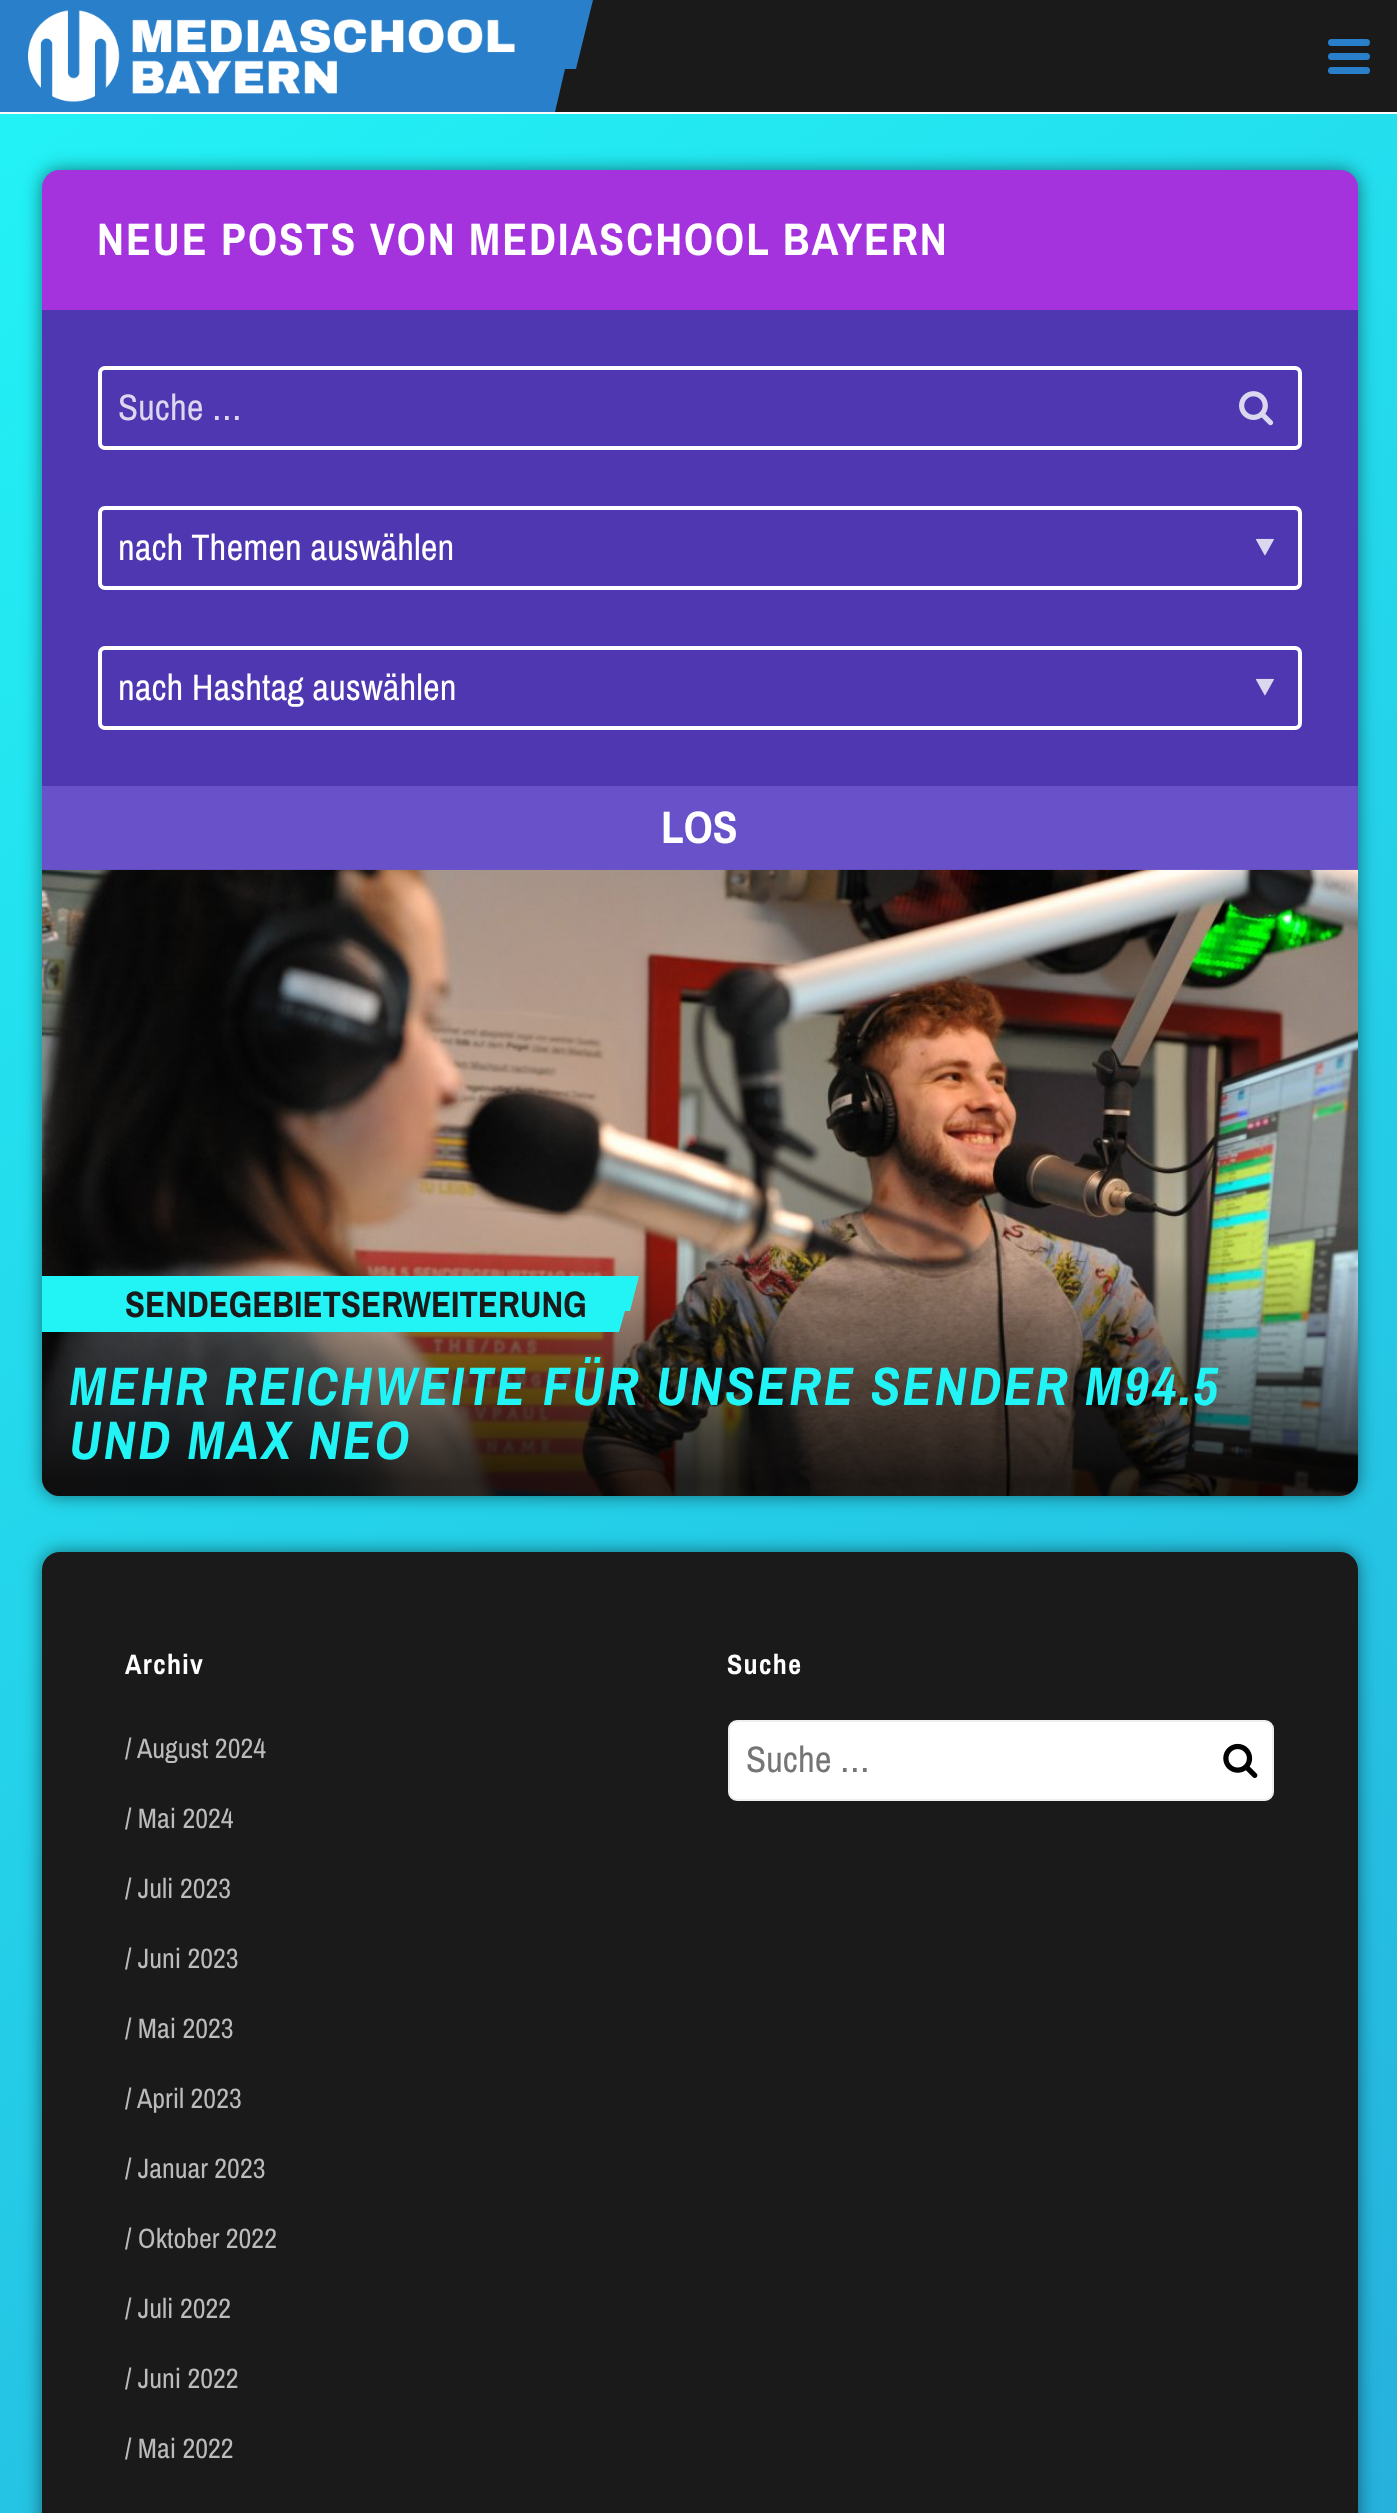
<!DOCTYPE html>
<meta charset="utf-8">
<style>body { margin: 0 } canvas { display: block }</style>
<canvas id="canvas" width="1397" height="2513"></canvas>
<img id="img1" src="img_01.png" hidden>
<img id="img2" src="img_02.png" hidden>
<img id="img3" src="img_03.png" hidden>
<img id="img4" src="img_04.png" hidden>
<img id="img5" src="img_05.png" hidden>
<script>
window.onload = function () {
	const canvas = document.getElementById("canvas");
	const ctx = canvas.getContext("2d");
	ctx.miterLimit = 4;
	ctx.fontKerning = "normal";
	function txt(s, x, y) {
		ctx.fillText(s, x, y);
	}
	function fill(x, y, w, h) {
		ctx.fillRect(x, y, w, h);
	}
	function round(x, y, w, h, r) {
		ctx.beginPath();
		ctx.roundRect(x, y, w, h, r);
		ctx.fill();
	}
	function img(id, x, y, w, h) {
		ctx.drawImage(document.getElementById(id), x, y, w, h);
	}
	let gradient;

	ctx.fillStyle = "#FFFFFF";
	fill(0, 0, 1397, 2513);
	gradient = ctx.createLinearGradient(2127, 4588, -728, 510);
	gradient.addColorStop(0, "#297FCA");
	gradient.addColorStop(1, "#22F4F6");
	ctx.fillStyle = gradient;
	fill(0, 114, 1397, 2399);
	ctx.fillStyle = "#1A1A1A";
	fill(555, 0, 842, 112);
	ctx.fillStyle = "#FAFAFA";
	fill(0, 112, 1397, 2);
	ctx.fillStyle = "#297FCA";
	fill(0, 0, 541, 112);
	img("img1", 28, 10, 487, 92);
	ctx.beginPath();
	ctx.moveTo(581, 0);
	ctx.lineTo(593, 0);
	ctx.lineTo(576, 69);
	ctx.lineTo(565, 69);
	ctx.lineTo(555, 112);
	ctx.lineTo(541, 112);
	ctx.lineTo(541, 0);
	ctx.closePath();
	ctx.fill("evenodd");
	round(1328, 53, 42, 7, 3.5);
	round(1328, 39, 42, 7, 3.5);
	round(1328, 67, 42, 7, 3.5);
	ctx.fillStyle = "rgba(0, 0, 0, 0.5)";
	ctx.filter = "blur(9px)";
	ctx.beginPath();
	ctx.roundRect(42, 170, 1316, 1326, 18);
	ctx.fill();
	ctx.filter = "none";
	ctx.fillStyle = "#A433DE";
	ctx.beginPath();
	ctx.roundRect(42, 170, 1316, 140, [18, 18, 0, 0]);
	ctx.fill();
	ctx.fillStyle = "#4E37B0";
	fill(42, 310, 1316, 476);
	ctx.beginPath();
	ctx.roundRect(100, 368, 1200, 80, 5);
	ctx.strokeStyle = "#FFFFFF";
	ctx.lineWidth = 4;
	ctx.stroke();
	img("img2", 1239, 391, 35, 35);
	ctx.beginPath();
	ctx.roundRect(100, 508, 1200, 80, 5);
	ctx.stroke();
	img("img3", 1255, 538, 19, 18);
	ctx.beginPath();
	ctx.roundRect(100, 648, 1200, 80, 5);
	ctx.stroke();
	img("img3", 1255, 678, 19, 18);
	ctx.fillStyle = "#6851C9";
	fill(42, 786, 1316, 84);
	img("img4", 42, 869, 1316, 627);
	gradient = ctx.createLinearGradient(700, 1255, 700, 1505);
	gradient.addColorStop(0, "rgba(0, 0, 0, 0)");
	gradient.addColorStop(0.9, "rgba(0, 0, 0, 0.8)");
	ctx.fillStyle = gradient;
	ctx.beginPath();
	ctx.roundRect(42, 1255, 1316, 241, [0, 0, 18, 18]);
	ctx.fill();
	ctx.fillStyle = "#22F4F6";
	fill(42, 1276, 571, 56);
	ctx.save();
	ctx.beginPath();
	ctx.rect(613, 1276, 26, 56);
	ctx.clip();
	ctx.beginPath();
	ctx.moveTo(633, 1276);
	ctx.lineTo(639, 1276);
	ctx.lineTo(630, 1311);
	ctx.lineTo(625, 1311);
	ctx.lineTo(619, 1332);
	ctx.lineTo(612, 1332);
	ctx.lineTo(612, 1276);
	ctx.closePath();
	ctx.fill("evenodd");
	ctx.restore();
	ctx.fillStyle = "rgba(0, 0, 0, 0.5)";
	ctx.filter = "blur(9px)";
	ctx.beginPath();
	ctx.roundRect(42, 1552, 1316, 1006, 18);
	ctx.fill();
	ctx.filter = "none";
	ctx.fillStyle = "#1A1A1A";
	round(42, 1552, 1316, 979, 18);
	ctx.fillStyle = "#FFFFFF";
	ctx.beginPath();
	ctx.roundRect(729, 1721, 544, 79, 8);
	ctx.fill();
	ctx.strokeStyle = "#EEEEEE";
	ctx.lineWidth = 2;
	ctx.stroke();
	img("img5", 1223, 1743, 35, 35);
	ctx.letterSpacing = "2px";
	ctx.font = "bold 45.5px Archivo Narrow";
	txt("NEUE POSTS VON MEDIASCHOOL BAYERN", 97, 255);
	ctx.letterSpacing = "0px";
	ctx.font = "36.75px Archivo Narrow";
	ctx.fillStyle = "#DCD7EF";
	txt("Suche …", 118, 420);
	ctx.fillStyle = "#FFFFFF";
	txt("nach Themen auswählen", 118, 560);
	txt("nach Hashtag auswählen", 118, 700);
	ctx.font = "bold 45.5px Archivo Narrow";
	txt("LOS", 661, 843);
	ctx.font = "bold 36.75px Archivo Narrow";
	ctx.fillStyle = "#1A1A1A";
	txt("SENDEGEBIETSERWEITERUNG", 125, 1317);
	ctx.letterSpacing = "2.4px";
	ctx.font = "italic bold 54.25px Archivo Narrow";
	ctx.fillStyle = "#22F4F6";
	txt("MEHR REICHWEITE FÜR UNSERE SENDER M94.5", 69, 1405);
	txt("UND MAX NEO", 69, 1459);
	ctx.letterSpacing = "1.25px";
	ctx.font = "bold 28px Archivo Narrow";
	ctx.fillStyle = "#FFFFFF";
	txt("Archiv", 125, 1674);
	ctx.letterSpacing = "0px";
	ctx.font = "28px Archivo Narrow";
	ctx.fillStyle = "#BBBBBB";
	txt("/", 125, 1758);
	txt("August 2024", 137, 1758);
	txt("/ Mai 2024", 125, 1828);
	txt("/ Juli 2023", 125, 1898);
	txt("/ Juni 2023", 125, 1968);
	txt("/ Mai 2023", 125, 2038);
	txt("/", 125, 2108);
	txt("April 2023", 137, 2108);
	txt("/ Januar 2023", 125, 2178);
	txt("/ Oktober 2022", 125, 2248);
	txt("/ Juli 2022", 125, 2318);
	txt("/ Juni 2022", 125, 2388);
	txt("/ Mai 2022", 125, 2458);
	ctx.letterSpacing = "1.25px";
	ctx.font = "bold 28px Archivo Narrow";
	ctx.fillStyle = "#FFFFFF";
	txt("Suche", 727, 1674);
	ctx.letterSpacing = "0px";
	ctx.font = "36.75px Archivo Narrow";
	ctx.fillStyle = "#757575";
	txt("Suche …", 746, 1772);
};
</script>
